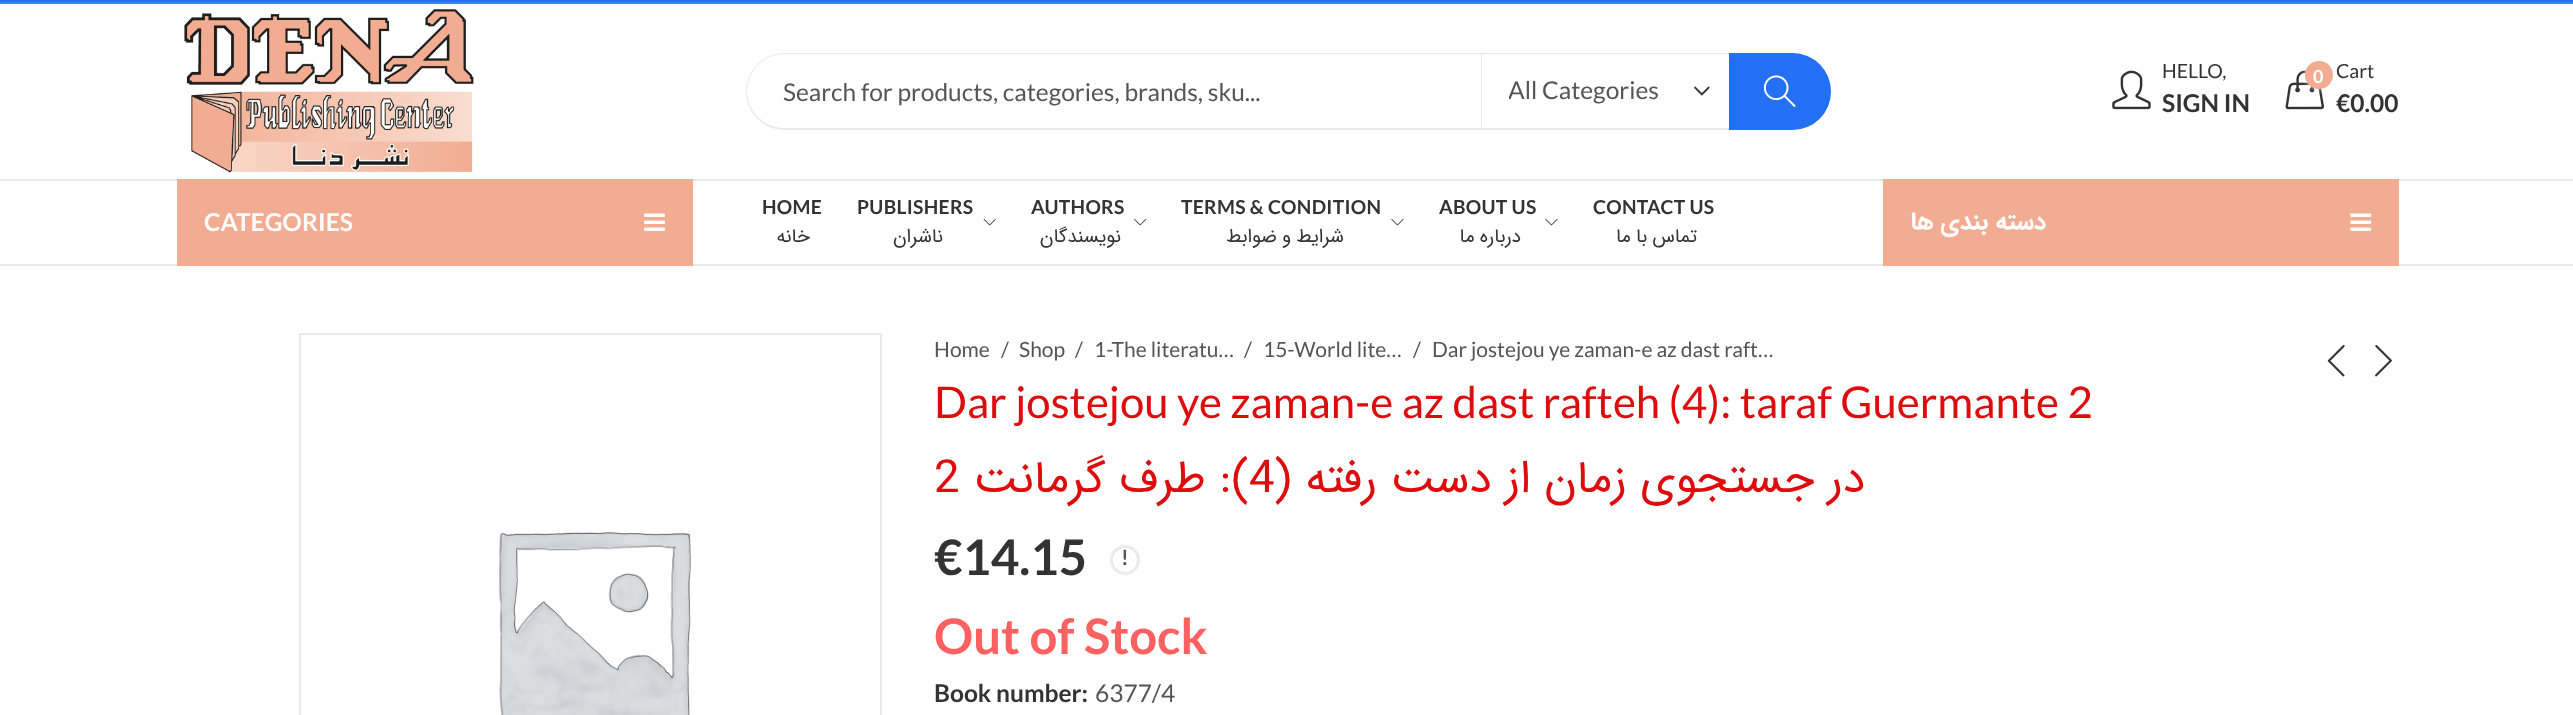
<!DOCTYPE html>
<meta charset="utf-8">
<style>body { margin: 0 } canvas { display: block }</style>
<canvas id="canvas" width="2573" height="715"></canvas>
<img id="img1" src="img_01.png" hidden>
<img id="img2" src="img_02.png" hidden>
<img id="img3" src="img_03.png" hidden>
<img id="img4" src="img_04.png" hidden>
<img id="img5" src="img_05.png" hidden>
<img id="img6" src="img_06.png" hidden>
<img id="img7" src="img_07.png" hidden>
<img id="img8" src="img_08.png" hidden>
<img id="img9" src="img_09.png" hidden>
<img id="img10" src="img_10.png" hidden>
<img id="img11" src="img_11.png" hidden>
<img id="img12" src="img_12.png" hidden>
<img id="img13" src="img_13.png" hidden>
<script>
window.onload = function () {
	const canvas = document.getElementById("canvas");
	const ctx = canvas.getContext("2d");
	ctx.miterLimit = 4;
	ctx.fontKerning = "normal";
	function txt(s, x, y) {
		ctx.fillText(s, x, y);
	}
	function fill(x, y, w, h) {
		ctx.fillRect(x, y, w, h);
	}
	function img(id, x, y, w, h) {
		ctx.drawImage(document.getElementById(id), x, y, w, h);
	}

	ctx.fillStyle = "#FFFFFF";
	fill(0, 0, 2573, 715);
	ctx.fillStyle = "#2370F4";
	fill(0, 0, 2573, 2);
	ctx.fillStyle = "#3885FE";
	fill(0, 2, 2573, 2);
	img("img1", 184, 9, 290, 164);
	ctx.beginPath();
	ctx.roundRect(747, 54, 1083, 75, 37.5);
	ctx.strokeStyle = "#E9E9E9";
	ctx.lineWidth = 2;
	ctx.stroke();
	ctx.fillStyle = "#FFFFFF";
	ctx.beginPath();
	ctx.roundRect(747, 54, 735, 74, [37, 0, 0, 37]);
	ctx.fill();
	ctx.fillStyle = "#E9E9E9";
	fill(1481, 54, 1, 74);
	ctx.fillStyle = "#FFFFFF";
	fill(1482, 54, 247, 1);
	img("img2", 1694, 86, 16, 10);
	ctx.fillStyle = "#2370F4";
	ctx.beginPath();
	ctx.roundRect(1729, 53, 102, 77, [0, 38.5, 38.5, 0]);
	ctx.fill();
	img("img3", 1763, 75, 33, 32);
	img("img4", 2112, 70, 39, 40);
	img("img5", 2285, 70, 39, 40);
	ctx.fillStyle = "rgba(255, 255, 255, 0.7)";
	ctx.filter = "blur(2.5px)";
	ctx.beginPath();
	ctx.roundRect(2305, 61, 28, 28, 14);
	ctx.fill();
	ctx.filter = "none";
	ctx.fillStyle = "#F2AC92";
	ctx.beginPath();
	ctx.arc(2319, 75, 14, 0, Math.PI * 2);
	ctx.fill();
	ctx.fillStyle = "#E9E9E9";
	fill(0, 179, 2573, 2);
	fill(0, 264, 2573, 2);
	ctx.fillStyle = "#F2AC92";
	fill(177, 179, 516, 87);
	img("img6", 644, 213, 21, 18);
	img("img7", 983, 219, 13, 7);
	img("img8", 1134, 218, 13, 8);
	img("img9", 1391, 218, 13, 8);
	img("img9", 1545, 218, 13, 8);
	fill(1883, 179, 516, 87);
	img("img10", 2350, 213, 22, 18);
	ctx.strokeRect(300, 334, 581, 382);
	img("img11", 499, 532, 192, 183);
	img("img12", 2327, 345, 18, 32);
	img("img13", 2375, 345, 17, 32);
	ctx.save();
	ctx.beginPath();
	ctx.moveTo(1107, 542);
	ctx.lineTo(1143, 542);
	ctx.lineTo(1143, 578);
	ctx.lineTo(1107, 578);
	ctx.closePath();
	ctx.moveTo(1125, 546);
	ctx.bezierCurveTo(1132.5, 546, 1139, 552.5, 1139, 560);
	ctx.bezierCurveTo(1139, 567.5, 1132.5, 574, 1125, 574);
	ctx.bezierCurveTo(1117.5, 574, 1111, 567.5, 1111, 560);
	ctx.bezierCurveTo(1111, 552.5, 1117.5, 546, 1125, 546);
	ctx.closePath();
	ctx.clip("evenodd");
	ctx.fillStyle = "rgba(0, 0, 0, 0.2)";
	ctx.filter = "blur(1px)";
	ctx.beginPath();
	ctx.roundRect(1111, 546, 28, 28, 14);
	ctx.fill();
	ctx.filter = "none";
	ctx.restore();
	ctx.beginPath();
	ctx.arc(1125, 560, 13, 0, Math.PI * 2);
	ctx.stroke();
	ctx.font = "24.5px Lato";
	ctx.fillStyle = "#555555";
	txt("Search for products, categories, brands, sku...", 783, 101);
	ctx.save();
	ctx.beginPath();
	ctx.rect(1509, 72, 176, 38);
	ctx.clip();
	txt("All Categories", 1508, 99);
	ctx.restore();
	ctx.font = "19.5px Lato";
	ctx.fillStyle = "#333333";
	txt("HELLO,", 2162, 78);
	ctx.font = "bold 24.5px Lato";
	txt("SIGN IN", 2162, 112);
	ctx.font = "bold 18px Lato";
	ctx.fillStyle = "#FFFFFF";
	txt("0", 2313, 83);
	ctx.font = "19.5px Lato";
	ctx.fillStyle = "#333333";
	txt("Cart", 2336, 78);
	ctx.font = "bold 24.5px Lato";
	txt("€0.00", 2336, 112);
	ctx.fillStyle = "#FFFFFF";
	txt("CATEGORIES", 204, 231);
	ctx.letterSpacing = "0.3px";
	ctx.font = "bold 19.25px Lato";
	ctx.fillStyle = "#333333";
	txt("HOME", 762, 214);
	ctx.direction = "rtl";
	ctx.font = "19.25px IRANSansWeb";
	txt("خانه", 810, 242);
	ctx.direction = "ltr";
	ctx.font = "bold 19.25px Lato";
	txt("PUBLISHERS", 857, 214);
	ctx.direction = "rtl";
	ctx.font = "19.25px IRANSansWeb";
	txt("ناشران", 943, 242);
	ctx.direction = "ltr";
	ctx.font = "bold 19.25px Lato";
	txt("AUTHORS", 1031, 214);
	ctx.direction = "rtl";
	ctx.font = "19.25px IRANSansWeb";
	txt("نویسندگان", 1121, 242);
	ctx.direction = "ltr";
	ctx.font = "bold 19.25px Lato";
	txt("TERMS & CONDITION", 1181, 214);
	ctx.wordSpacing = "-1px";
	ctx.direction = "rtl";
	ctx.font = "19.25px IRANSansWeb";
	txt("شرایط و ضوابط", 1344, 242);
	ctx.wordSpacing = "0px";
	ctx.direction = "ltr";
	ctx.font = "bold 19.25px Lato";
	txt("ABOUT US", 1439, 214);
	ctx.wordSpacing = "-1px";
	ctx.direction = "rtl";
	ctx.font = "19.25px IRANSansWeb";
	txt("درباره ما", 1521, 242);
	ctx.wordSpacing = "0px";
	ctx.direction = "ltr";
	ctx.font = "bold 19.25px Lato";
	txt("CONTACT US", 1593, 214);
	ctx.wordSpacing = "-1px";
	ctx.direction = "rtl";
	ctx.font = "19.25px IRANSansWeb";
	txt("تماس با ما", 1697, 242);
	ctx.letterSpacing = "0px";
	ctx.wordSpacing = "0px";
	ctx.font = "bold 24.5px IRANSansWeb";
	ctx.fillStyle = "#FFFFFF";
	txt("دسته بندی ها", 2046, 229);
	ctx.direction = "ltr";
	ctx.font = "21px Lato";
	ctx.fillStyle = "#555555";
	txt("Home", 934, 357);
	txt("/", 1001, 357);
	txt("Shop", 1019, 357);
	txt("/", 1075, 357);
	txt("1-The literatu…", 1094, 357);
	txt("/", 1244, 357);
	txt("15-World lite…", 1263, 357);
	txt("/", 1413, 357);
	txt("Dar jostejou ye zaman-e az dast raft…", 1432, 357);
	ctx.font = "43.75px Lato";
	ctx.fillStyle = "#DE0C0C";
	txt("Dar jostejou ye zaman-e az dast rafteh (4): taraf Guermante 2", 934, 418);
	ctx.font = "45.5px IRANSansWeb";
	txt("2", 934, 492);
	ctx.direction = "rtl";
	txt("): طرف گرمانت", 1249, 492);
	ctx.direction = "ltr";
	txt("4", 1249, 492);
	ctx.direction = "rtl";
	txt("در جستجوی زمان از دست رفته (", 1865, 492);
	ctx.direction = "ltr";
	ctx.font = "bold 49px Lato";
	ctx.fillStyle = "#333333";
	txt("€14.15", 934, 575);
	ctx.font = "bold 21px Lato";
	ctx.fillStyle = "#555555";
	txt("!", 1121, 565);
	ctx.font = "bold 49px Lato";
	ctx.fillStyle = "#FF6161";
	txt("Out of Stock", 934, 654);
	ctx.font = "bold 24.5px Lato";
	ctx.fillStyle = "#333333";
	txt("Book number:", 934, 702);
	ctx.font = "24.5px Lato";
	ctx.fillStyle = "#555555";
	txt("6377/4", 1095, 702);
};
</script>
